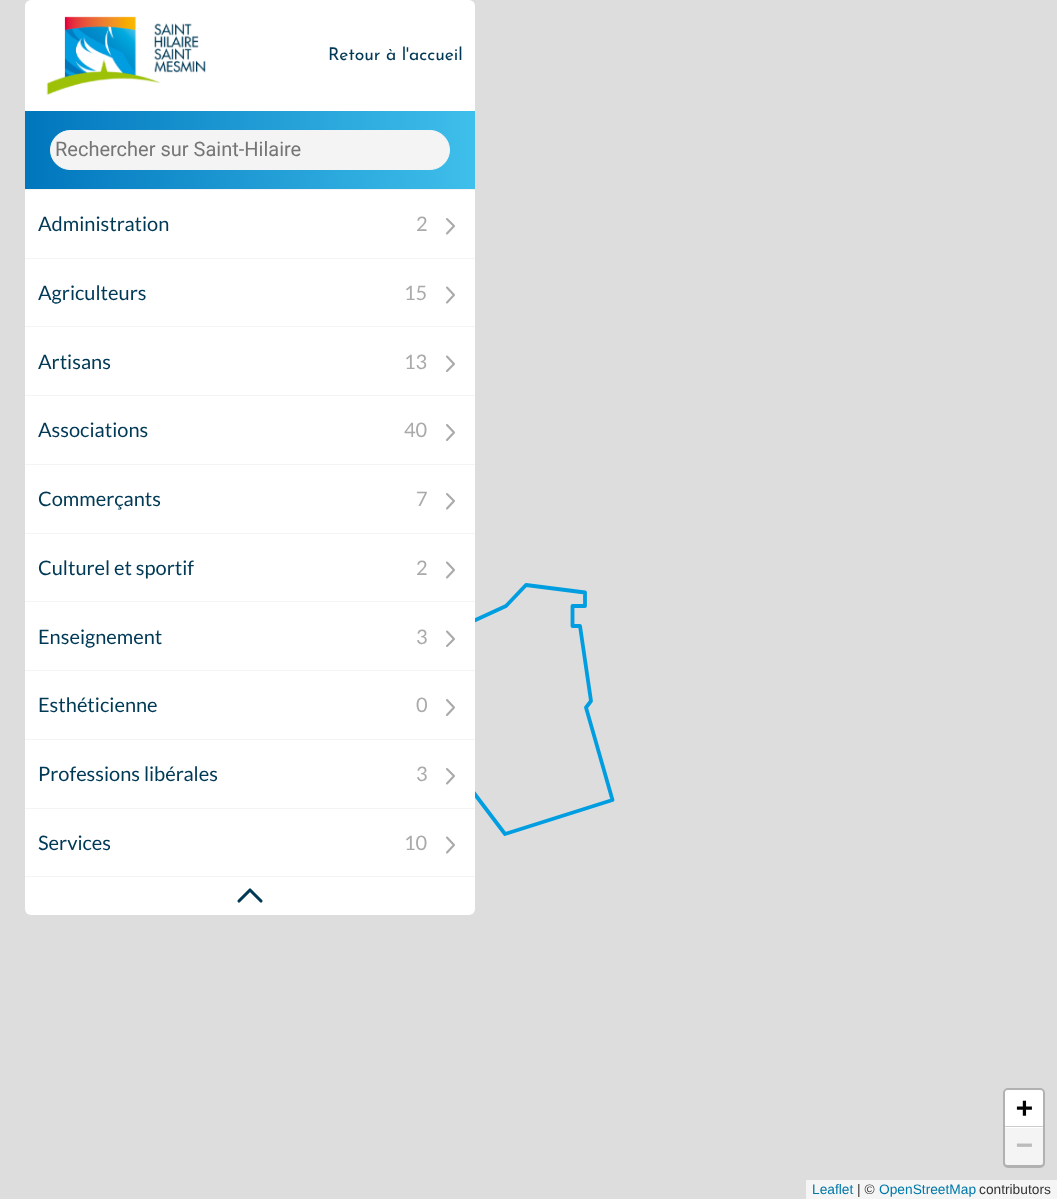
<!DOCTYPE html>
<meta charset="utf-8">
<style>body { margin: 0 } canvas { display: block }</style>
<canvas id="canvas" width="1057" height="1199"></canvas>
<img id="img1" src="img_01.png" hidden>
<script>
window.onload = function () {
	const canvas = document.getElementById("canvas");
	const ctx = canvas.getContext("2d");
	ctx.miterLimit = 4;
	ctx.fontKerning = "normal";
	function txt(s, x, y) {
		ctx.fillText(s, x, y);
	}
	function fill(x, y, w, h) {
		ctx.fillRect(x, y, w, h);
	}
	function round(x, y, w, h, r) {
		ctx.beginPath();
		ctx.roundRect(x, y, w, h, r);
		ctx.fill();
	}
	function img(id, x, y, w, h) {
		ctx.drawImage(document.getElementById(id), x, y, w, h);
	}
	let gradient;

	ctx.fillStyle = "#DDDDDD";
	fill(0, 0, 1057, 1199);
	ctx.beginPath();
	ctx.moveTo(505, 834);
	ctx.lineTo(466, 782.5);
	ctx.lineTo(431, 767.5);
	ctx.lineTo(419, 746);
	ctx.lineTo(461, 755);
	ctx.lineTo(397.5, 669);
	ctx.lineTo(412.5, 657.5);
	ctx.lineTo(407.5, 651);
	ctx.lineTo(440, 635);
	ctx.lineTo(427.5, 635);
	ctx.lineTo(440, 626);
	ctx.lineTo(462.5, 626);
	ctx.lineTo(506, 606);
	ctx.lineTo(526, 585);
	ctx.lineTo(585, 592.5);
	ctx.lineTo(585, 606);
	ctx.lineTo(572.5, 606);
	ctx.lineTo(572.5, 626);
	ctx.lineTo(580, 626);
	ctx.lineTo(591, 701);
	ctx.lineTo(586, 707.5);
	ctx.lineTo(612.5, 800);
	ctx.lineTo(505, 834);
	ctx.strokeStyle = "#009EE0";
	ctx.lineWidth = 3.8;
	ctx.lineCap = "round";
	ctx.lineJoin = "round";
	ctx.stroke();
	ctx.fillStyle = "#FFFFFF";
	round(25, 0, 450, 915, 6);
	img("img1", 46, 16, 160, 79);
	gradient = ctx.createLinearGradient(25, 150, 475, 150);
	gradient.addColorStop(0, "#0076BD");
	gradient.addColorStop(1, "#3FBFEB");
	ctx.fillStyle = gradient;
	fill(25, 111, 450, 78);
	ctx.fillStyle = "#F4F4F4";
	ctx.beginPath();
	ctx.roundRect(50.5, 130.5, 399, 39, 19.5);
	ctx.fill();
	ctx.strokeStyle = "#F4F4F4";
	ctx.lineWidth = 1;
	ctx.lineJoin = "miter";
	ctx.stroke();
	fill(25, 189, 450, 1);
	ctx.beginPath();
	ctx.moveTo(447, 219);
	ctx.lineTo(454, 226);
	ctx.lineTo(447, 233.5);
	ctx.strokeStyle = "#AAAAAA";
	ctx.lineWidth = 2.1;
	ctx.lineJoin = "round";
	ctx.stroke();
	fill(25, 258, 450, 1);
	ctx.beginPath();
	ctx.moveTo(447, 287.5);
	ctx.lineTo(454, 295);
	ctx.lineTo(447, 302.5);
	ctx.stroke();
	fill(25, 326, 450, 1);
	ctx.beginPath();
	ctx.moveTo(447, 356.5);
	ctx.lineTo(454, 364);
	ctx.lineTo(447, 371);
	ctx.stroke();
	fill(25, 395, 450, 1);
	ctx.beginPath();
	ctx.moveTo(447, 425);
	ctx.lineTo(454, 432.5);
	ctx.lineTo(447, 440);
	ctx.stroke();
	fill(25, 464, 450, 1);
	ctx.beginPath();
	ctx.moveTo(447, 494);
	ctx.lineTo(454, 501);
	ctx.lineTo(447, 508.5);
	ctx.stroke();
	fill(25, 533, 450, 1);
	ctx.beginPath();
	ctx.moveTo(447, 562.5);
	ctx.lineTo(454, 570);
	ctx.lineTo(447, 577.5);
	ctx.stroke();
	fill(25, 601, 450, 1);
	ctx.beginPath();
	ctx.moveTo(447, 631.5);
	ctx.lineTo(454, 639);
	ctx.lineTo(447, 646);
	ctx.stroke();
	fill(25, 670, 450, 1);
	ctx.beginPath();
	ctx.moveTo(447, 700);
	ctx.lineTo(454, 707.5);
	ctx.lineTo(447, 715);
	ctx.stroke();
	fill(25, 739, 450, 1);
	ctx.beginPath();
	ctx.moveTo(447, 769);
	ctx.lineTo(454, 776);
	ctx.lineTo(447, 783.5);
	ctx.stroke();
	fill(25, 808, 450, 1);
	ctx.beginPath();
	ctx.moveTo(447, 837.5);
	ctx.lineTo(454, 845);
	ctx.lineTo(447, 852.5);
	ctx.stroke();
	fill(25, 876, 450, 1);
	ctx.beginPath();
	ctx.moveTo(239, 901);
	ctx.lineTo(250, 890);
	ctx.lineTo(261, 901);
	ctx.strokeStyle = "#003956";
	ctx.lineWidth = 3.1;
	ctx.stroke();
	ctx.beginPath();
	ctx.roundRect(1004.5, 1089.5, 39, 77, 3.5);
	ctx.strokeStyle = "#B1B1B1";
	ctx.lineWidth = 3;
	ctx.lineJoin = "miter";
	ctx.stroke();
	ctx.fillStyle = "#FFFFFF";
	ctx.beginPath();
	ctx.roundRect(1005, 1090, 38, 38, [2.5, 2.5, 0, 0]);
	ctx.fill();
	ctx.fillStyle = "#CCCCCC";
	fill(1005, 1126, 38, 1);
	ctx.fillStyle = "#F4F4F4";
	ctx.beginPath();
	ctx.roundRect(1005, 1128, 38, 37, [0, 0, 2.5, 2.5]);
	ctx.fill();
	ctx.fillStyle = "#F5F5F5";
	fill(806, 1180, 251, 19);
	ctx.font = "17.5px Josefin Sans";
	ctx.fillStyle = "#003956";
	txt("Retour à l'accueil", 328, 60);
	ctx.font = "20px Roboto";
	ctx.fillStyle = "#757575";
	txt("Rechercher sur Saint-Hilaire", 55, 156);
	ctx.font = "20px Lato";
	ctx.fillStyle = "#003956";
	txt("Administration", 38, 231);
	ctx.fillStyle = "#AAAAAA";
	txt("2", 416, 231);
	ctx.fillStyle = "#003956";
	txt("Agriculteurs", 38, 300);
	ctx.fillStyle = "#AAAAAA";
	txt("15", 404, 300);
	ctx.fillStyle = "#003956";
	txt("Artisans", 38, 369);
	ctx.fillStyle = "#AAAAAA";
	txt("13", 404, 369);
	ctx.fillStyle = "#003956";
	txt("Associations", 38, 437);
	ctx.fillStyle = "#AAAAAA";
	txt("40", 404, 437);
	ctx.fillStyle = "#003956";
	txt("Commerçants", 38, 506);
	ctx.fillStyle = "#AAAAAA";
	txt("7", 416, 506);
	ctx.fillStyle = "#003956";
	txt("Culturel et sportif", 38, 575);
	ctx.fillStyle = "#AAAAAA";
	txt("2", 416, 575);
	ctx.fillStyle = "#003956";
	txt("Enseignement", 38, 644);
	ctx.fillStyle = "#AAAAAA";
	txt("3", 416, 644);
	ctx.fillStyle = "#003956";
	txt("Esthéticienne", 38, 712);
	ctx.fillStyle = "#AAAAAA";
	txt("0", 416, 712);
	ctx.fillStyle = "#003956";
	txt("Professions libérales", 38, 781);
	ctx.fillStyle = "#AAAAAA";
	txt("3", 416, 781);
	ctx.fillStyle = "#003956";
	txt("Services", 38, 850);
	ctx.fillStyle = "#AAAAAA";
	txt("10", 404, 850);
	ctx.font = "bold 28px DejaVu Sans Mono";
	ctx.fillStyle = "#000000";
	txt("+", 1016, 1117);
	ctx.fillStyle = "#BBBBBB";
	txt("−", 1016, 1154);
	ctx.font = "13.75px Liberation Sans";
	ctx.fillStyle = "#0078A8";
	txt("Leaflet", 812, 1194);
	ctx.fillStyle = "#333333";
	txt("| ©", 857, 1194);
	ctx.fillStyle = "#0078A8";
	txt("OpenStreetMap", 879, 1194);
	ctx.fillStyle = "#333333";
	txt("contributors", 979, 1194);
};
</script>
